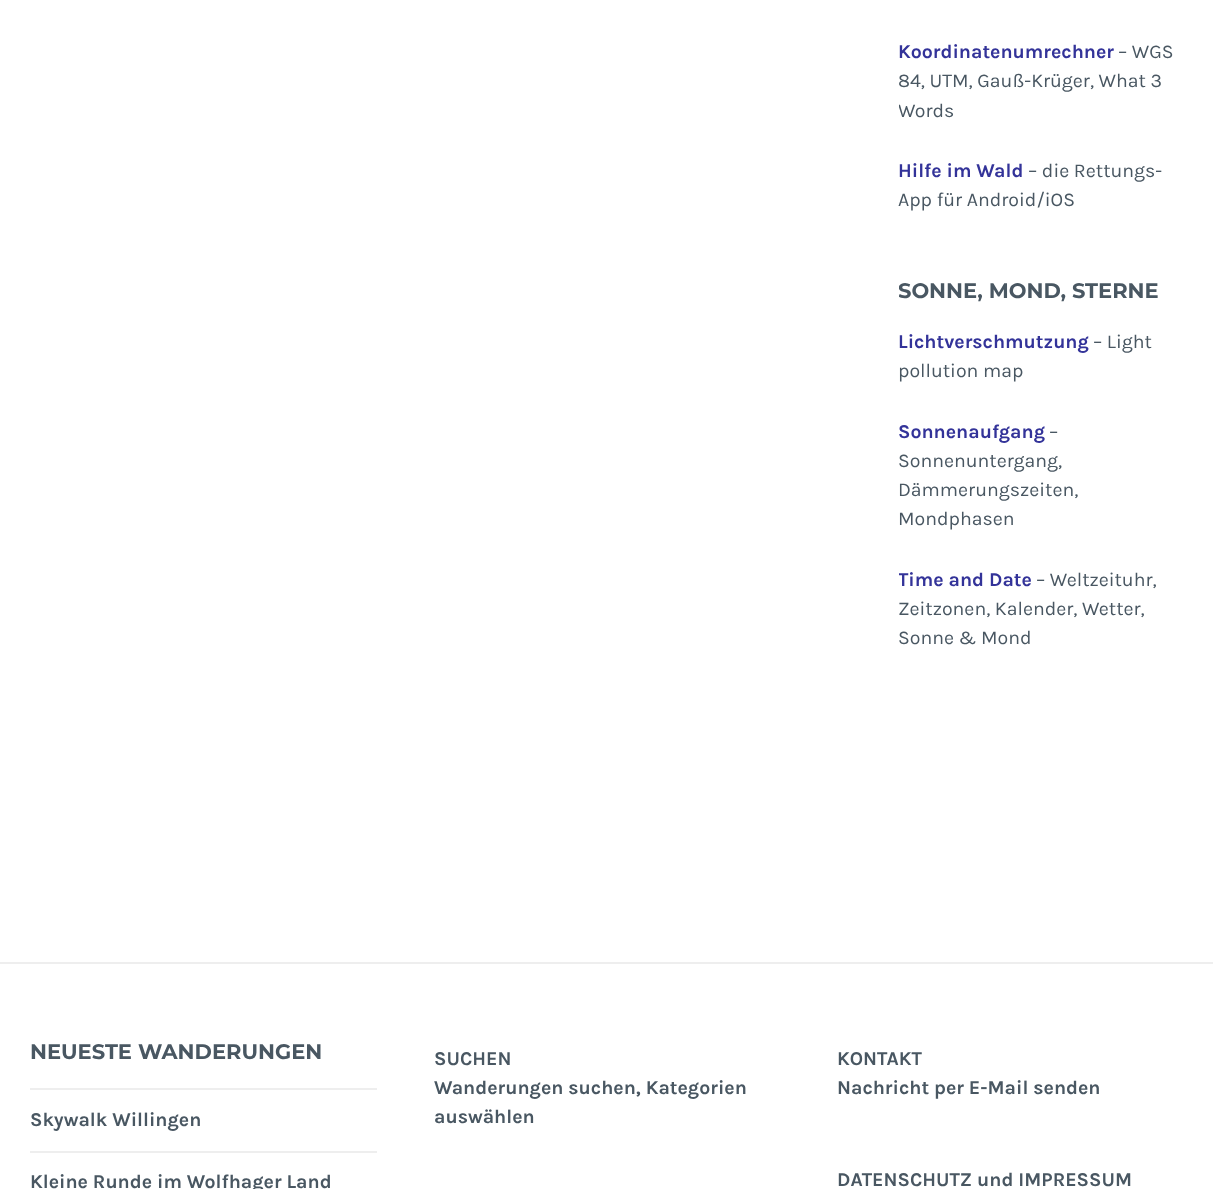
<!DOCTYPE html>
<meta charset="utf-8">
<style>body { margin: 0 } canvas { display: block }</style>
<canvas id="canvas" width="1213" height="1189"></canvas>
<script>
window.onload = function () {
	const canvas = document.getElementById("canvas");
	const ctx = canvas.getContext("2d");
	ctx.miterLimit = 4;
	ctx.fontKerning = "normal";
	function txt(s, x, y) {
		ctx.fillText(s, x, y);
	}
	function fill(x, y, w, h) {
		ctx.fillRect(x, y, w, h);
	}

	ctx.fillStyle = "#FFFFFF";
	fill(0, 0, 1213, 1189);
	ctx.fillStyle = "#EEEEEE";
	fill(0, 962, 1213, 2);
	fill(30, 1088, 347, 2);
	fill(30, 1151, 347, 2);
	ctx.font = "bold 19.5px Karla";
	ctx.fillStyle = "#333399";
	txt("Koordinatenumrechner", 898, 58);
	ctx.font = "19.5px Karla";
	ctx.fillStyle = "#495762";
	txt("– WGS", 1118, 58);
	txt("84, UTM, Gauß-Krüger, What 3", 898, 87);
	ctx.save();
	ctx.beginPath();
	ctx.rect(899, 0, 276, 716);
	ctx.clip();
	txt("Words", 898, 117);
	ctx.restore();
	ctx.font = "bold 19.5px Karla";
	ctx.fillStyle = "#333399";
	txt("Hilfe im Wald", 898, 177);
	ctx.font = "19.5px Karla";
	ctx.fillStyle = "#495762";
	txt("– die Rettungs-", 1028, 177);
	txt("App für Android/iOS", 898, 206);
	ctx.save();
	ctx.beginPath();
	ctx.rect(899, 0, 276, 716);
	ctx.clip();
	ctx.font = "bold 21px Montserrat";
	txt("SONNE, MOND, STERNE", 898, 298);
	ctx.restore();
	ctx.font = "bold 19.5px Karla";
	ctx.fillStyle = "#333399";
	txt("Lichtverschmutzung", 898, 348);
	ctx.font = "19.5px Karla";
	ctx.fillStyle = "#495762";
	txt("– Light", 1093, 348);
	txt("pollution map", 898, 377);
	ctx.font = "bold 19.5px Karla";
	ctx.fillStyle = "#333399";
	txt("Sonnenaufgang", 898, 438);
	ctx.font = "19.5px Karla";
	ctx.fillStyle = "#495762";
	txt("–", 1049, 438);
	txt("Sonnenuntergang,", 898, 467);
	txt("Dämmerungszeiten,", 898, 496);
	txt("Mondphasen", 898, 525);
	ctx.save();
	ctx.beginPath();
	ctx.rect(899, 0, 276, 716);
	ctx.clip();
	ctx.font = "bold 19.5px Karla";
	ctx.fillStyle = "#333399";
	txt("Time and Date", 898, 586);
	ctx.restore();
	txt("– Weltzeituhr,", 1036, 586);
	txt("Zeitzonen, Kalender, Wetter,", 898, 615);
	txt("Sonne & Mond", 898, 644);
	ctx.font = "bold 21px Montserrat";
	txt("NEUESTE WANDERUNGEN", 30, 1059);
	ctx.font = "bold 19.5px Karla";
	txt("Skywalk Willingen", 30, 1126);
	txt("Kleine Runde im Wolfhager Land", 30, 1188);
	txt("SUCHEN", 434, 1065);
	txt("Wanderungen suchen, Kategorien", 434, 1094);
	txt("auswählen", 434, 1123);
	txt("KONTAKT", 837, 1065);
	txt("Nachricht per E-Mail senden", 837, 1094);
	txt("DATENSCHUTZ und IMPRESSUM", 837, 1186);
};
</script>
